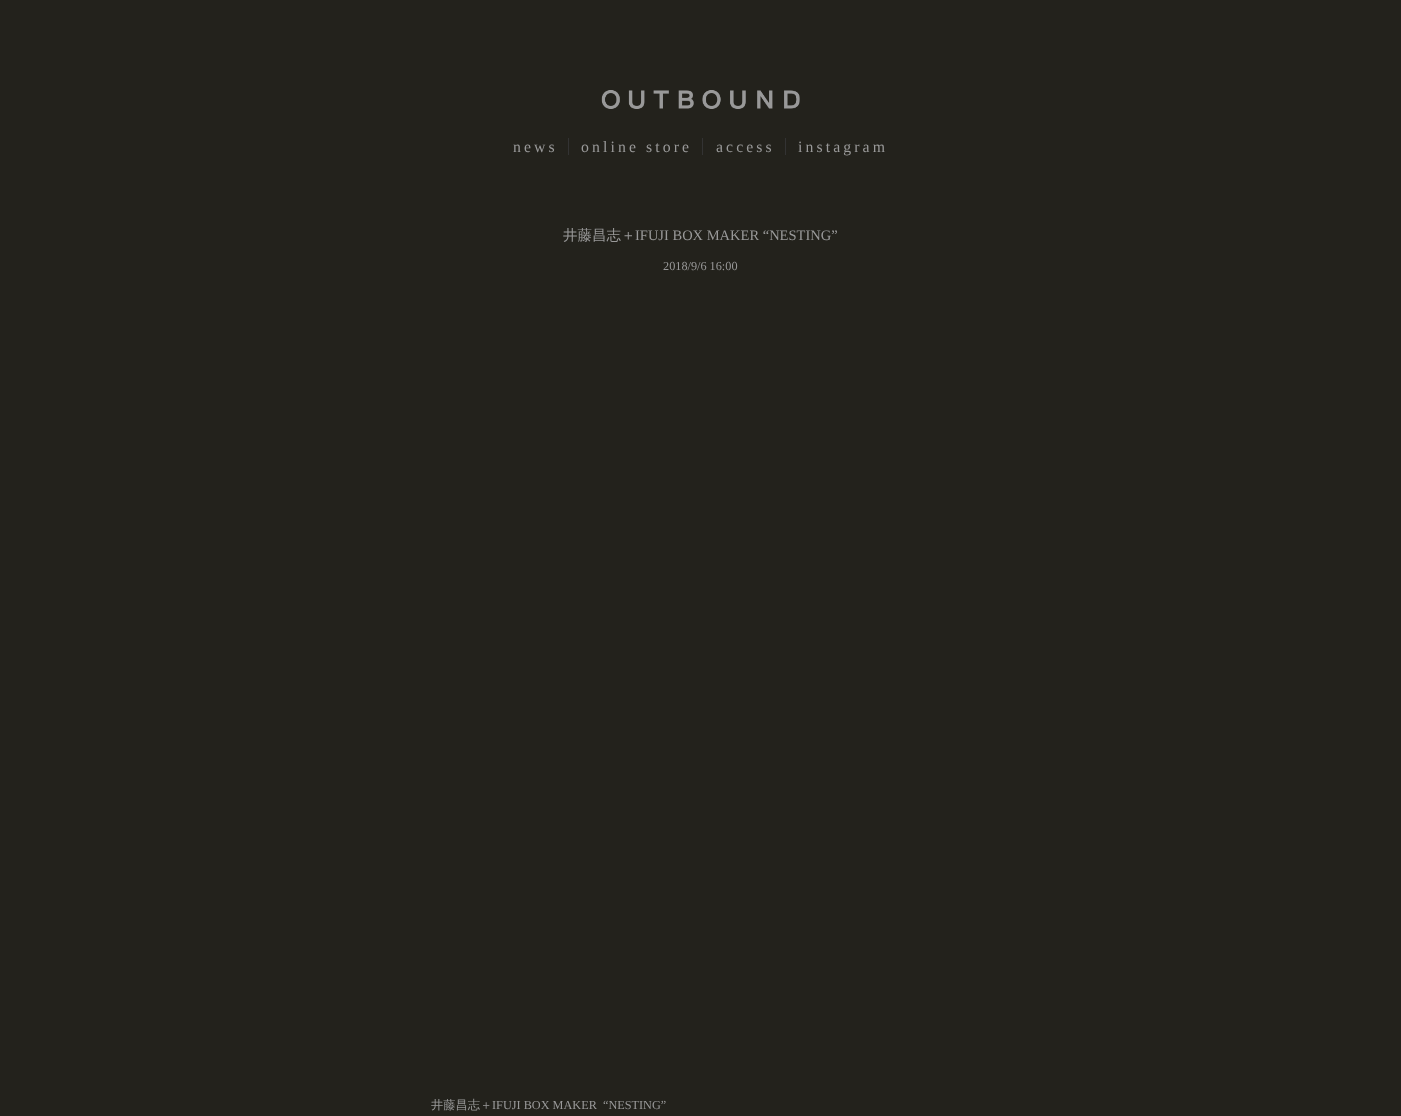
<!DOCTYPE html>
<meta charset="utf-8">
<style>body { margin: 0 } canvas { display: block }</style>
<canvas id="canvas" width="1401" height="1116"></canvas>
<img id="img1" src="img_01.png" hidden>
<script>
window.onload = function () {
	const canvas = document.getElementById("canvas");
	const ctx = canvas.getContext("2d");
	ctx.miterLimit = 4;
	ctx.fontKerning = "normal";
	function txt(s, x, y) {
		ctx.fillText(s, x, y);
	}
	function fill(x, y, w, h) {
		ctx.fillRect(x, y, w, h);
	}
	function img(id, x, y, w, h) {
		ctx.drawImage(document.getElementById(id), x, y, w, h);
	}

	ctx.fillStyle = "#23221C";
	fill(0, 0, 1401, 1116);
	img("img1", 601, 90, 199, 19);
	ctx.fillStyle = "#333333";
	fill(568, 138, 1, 17);
	fill(702, 138, 1, 17);
	fill(785, 138, 1, 17);
	ctx.letterSpacing = "3.1px";
	ctx.font = "15.75px Liberation Serif";
	ctx.fillStyle = "#999999";
	txt("news", 513, 152);
	txt("online store", 581, 152);
	txt("access", 716, 152);
	txt("instagram", 798, 152);
	ctx.letterSpacing = "0px";
	ctx.font = "500 14.5px WenQuanYi Zen Hei";
	txt("井藤昌志＋", 563, 240);
	ctx.font = "14.5px Liberation Serif";
	txt("IFUJI BOX MAKER “NESTING”", 635, 240);
	ctx.font = "12.25px Liberation Serif";
	txt("2018/9/6 16:00", 663, 270);
	ctx.font = "500 12.25px WenQuanYi Zen Hei";
	txt("井藤昌志＋", 431, 1109);
	ctx.font = "12.25px Liberation Serif";
	txt("IFUJI BOX MAKER  “NESTING”", 492, 1109);
};
</script>
